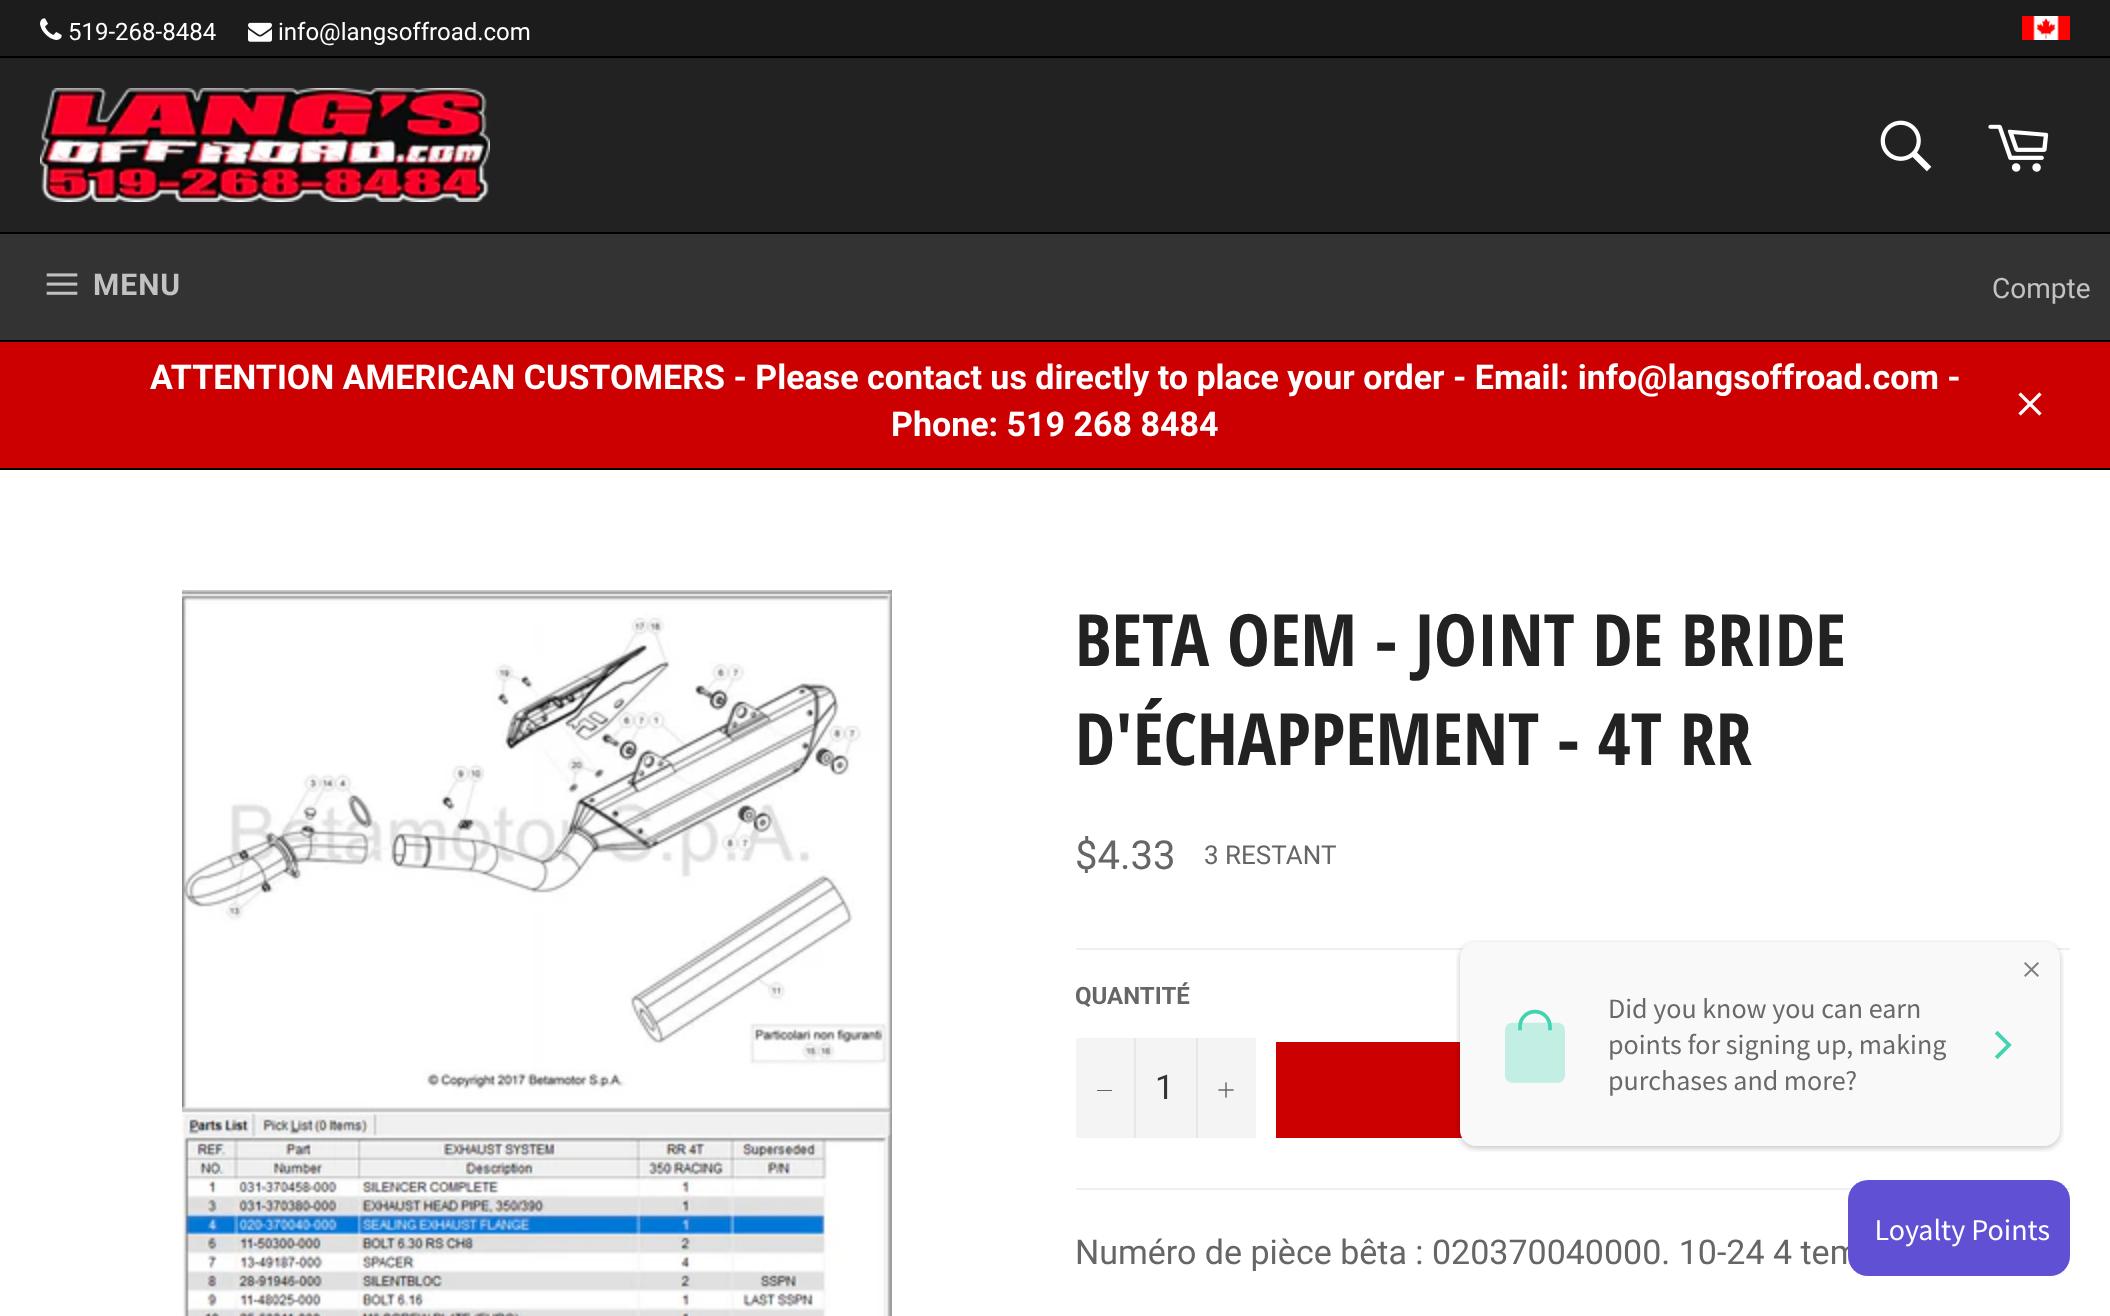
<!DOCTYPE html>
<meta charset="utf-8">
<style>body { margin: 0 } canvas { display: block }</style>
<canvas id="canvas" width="2110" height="1316"></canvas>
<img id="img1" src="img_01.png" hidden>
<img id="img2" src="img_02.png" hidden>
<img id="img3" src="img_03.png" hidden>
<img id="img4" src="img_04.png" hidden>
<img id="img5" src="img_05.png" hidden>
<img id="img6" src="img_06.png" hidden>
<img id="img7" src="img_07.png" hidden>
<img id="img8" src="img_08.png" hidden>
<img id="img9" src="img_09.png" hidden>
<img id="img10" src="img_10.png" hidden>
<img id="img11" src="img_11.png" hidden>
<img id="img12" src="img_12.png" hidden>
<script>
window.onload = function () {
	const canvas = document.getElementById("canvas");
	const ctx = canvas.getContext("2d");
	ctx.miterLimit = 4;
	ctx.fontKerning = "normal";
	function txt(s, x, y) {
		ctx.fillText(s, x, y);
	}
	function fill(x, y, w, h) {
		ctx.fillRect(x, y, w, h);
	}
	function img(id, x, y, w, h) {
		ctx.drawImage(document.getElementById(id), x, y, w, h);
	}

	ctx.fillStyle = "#1C1C1C";
	fill(0, 0, 2110, 1316);
	img("img1", 40, 18, 22, 22);
	img("img2", 248, 22, 24, 20);
	img("img3", 2022, 16, 48, 24);
	ctx.fillStyle = "#222222";
	fill(0, 58, 2110, 174);
	ctx.fillStyle = "#000000";
	fill(0, 56, 2110, 2);
	img("img4", 40, 88, 450, 114);
	img("img5", 1880, 120, 52, 52);
	img("img6", 1988, 124, 61, 48);
	fill(0, 232, 2110, 2);
	fill(0, 340, 2110, 2);
	ctx.fillStyle = "#333333";
	fill(0, 234, 2110, 106);
	img("img7", 46, 273, 32, 22);
	ctx.fillStyle = "#CC0000";
	fill(0, 342, 2110, 126);
	ctx.fillStyle = "#000000";
	fill(0, 468, 2110, 2);
	img("img8", 2018, 392, 24, 24);
	ctx.fillStyle = "#FFFFFF";
	fill(0, 470, 2110, 846);
	img("img9", 182, 590, 710, 726);
	ctx.fillStyle = "#F0F0F0";
	fill(1076, 948, 994, 2);
	ctx.fillStyle = "#F4F4F4";
	fill(1076, 1038, 180, 100);
	ctx.fillStyle = "#E7E7E7";
	fill(1134, 1038, 2, 100);
	ctx.fillStyle = "#666666";
	fill(1097, 1090, 15, 1);
	ctx.fillStyle = "#E7E7E7";
	fill(1196, 1038, 2, 100);
	img("img10", 1218, 1082, 16, 16);
	ctx.fillStyle = "#CC0000";
	fill(1276, 1042, 187, 96);
	ctx.fillStyle = "#F0F0F0";
	fill(1076, 1188, 994, 2);
	img("img11", 1456, 940, 608, 212);
	ctx.font = "24px Roboto";
	ctx.fillStyle = "#FFFFFF";
	txt("519-268-8484", 68, 40);
	txt("info@langsoffroad.com", 278, 40);
	ctx.letterSpacing = "1px";
	ctx.font = "bold 30px Roboto";
	ctx.fillStyle = "#C2C2C2";
	txt("MENU", 93, 295);
	ctx.letterSpacing = "0px";
	ctx.font = "28px Roboto";
	txt("Compte", 1992, 298);
	ctx.font = "bold 34px Roboto";
	ctx.fillStyle = "#FFFFFF";
	txt("ATTENTION AMERICAN CUSTOMERS - Please contact us directly to place your order - Email: info@langsoffroad.com -", 150, 389);
	txt("Phone: 519 268 8484", 891, 436);
	ctx.font = "bold 72px Open Sans Condensed";
	ctx.fillStyle = "#222222";
	txt("BETA OEM - JOINT DE BRIDE", 1075, 666);
	txt("D'ÉCHAPPEMENT - 4T RR", 1075, 765);
	ctx.font = "40px Roboto";
	ctx.fillStyle = "#666666";
	txt("$4.33", 1075, 869);
	ctx.font = "26px Roboto";
	txt("3 RESTANT", 1204, 864);
	ctx.font = "bold 24px Roboto";
	txt("QUANTITÉ", 1075, 1004);
	ctx.font = "34px Roboto";
	ctx.fillStyle = "#333333";
	txt("1", 1155, 1099);
	ctx.fillStyle = "#666666";
	txt("Numéro de pièce bêta : 020370040000. 10-24 4 tem", 1075, 1264);
	img("img12", 1848, 1180, 222, 96);
};
</script>
